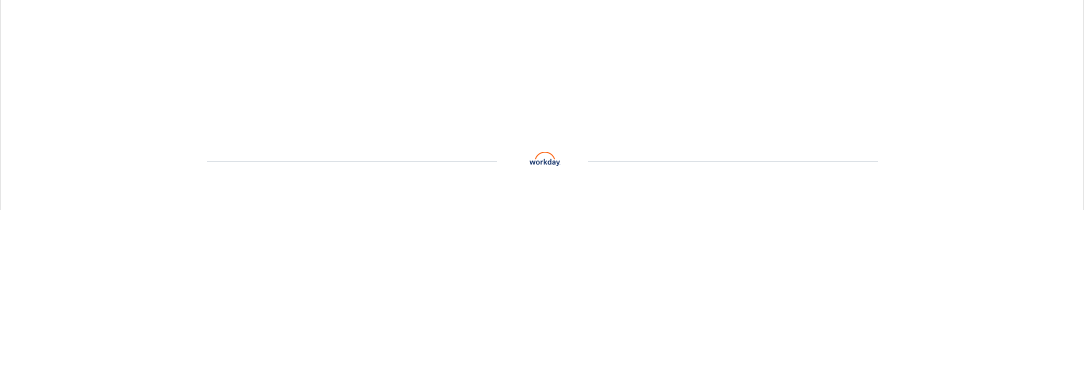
<!DOCTYPE html>
<meta charset="utf-8">
<style>body { margin: 0 } canvas { display: block }</style>
<canvas id="canvas" width="1084" height="376"></canvas>
<img id="img1" src="img_01.png" hidden>
<script>
window.onload = function () {
	const canvas = document.getElementById("canvas");
	const ctx = canvas.getContext("2d");
	ctx.miterLimit = 4;
	ctx.fontKerning = "normal";
	function fill(x, y, w, h) {
		ctx.fillRect(x, y, w, h);
	}
	function img(id, x, y, w, h) {
		ctx.drawImage(document.getElementById(id), x, y, w, h);
	}

	ctx.fillStyle = "#FFFFFF";
	fill(0, 0, 1084, 376);
	ctx.fillStyle = "#E5E5E5";
	fill(1083, 0, 1, 210);
	fill(0, 0, 1, 210);
	img("img1", 529, 152, 32, 14);
	ctx.fillStyle = "#DCE1E6";
	fill(207, 161, 290, 1);
	fill(588, 161, 290, 1);
};
</script>
